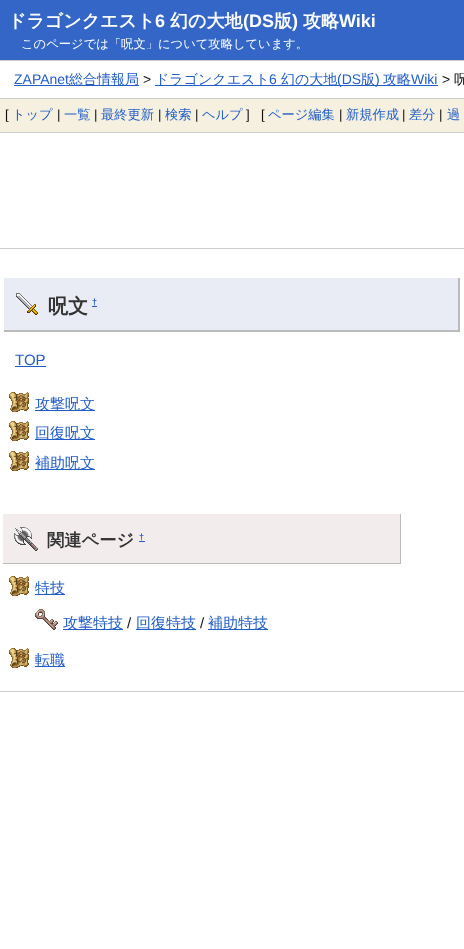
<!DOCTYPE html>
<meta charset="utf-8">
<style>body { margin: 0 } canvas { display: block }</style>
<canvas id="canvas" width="464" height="949"></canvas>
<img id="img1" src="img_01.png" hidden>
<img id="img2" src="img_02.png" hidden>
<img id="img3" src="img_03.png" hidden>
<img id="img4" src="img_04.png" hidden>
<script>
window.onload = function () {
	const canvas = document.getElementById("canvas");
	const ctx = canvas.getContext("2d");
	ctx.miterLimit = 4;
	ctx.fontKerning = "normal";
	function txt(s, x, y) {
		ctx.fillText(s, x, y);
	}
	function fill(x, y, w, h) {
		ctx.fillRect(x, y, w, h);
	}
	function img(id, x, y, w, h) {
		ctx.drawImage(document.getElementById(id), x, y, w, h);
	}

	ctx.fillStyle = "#FFFFFF";
	fill(0, 0, 464, 949);
	ctx.fillStyle = "#3366C6";
	fill(0, 0, 464, 60);
	ctx.fillStyle = "#CCCCCC";
	fill(0, 60, 464, 1);
	fill(0, 98, 464, 1);
	ctx.fillStyle = "#215DC6";
	fill(14, 85, 125, 1);
	fill(155, 85, 283, 1);
	ctx.fillStyle = "#F5F0E0";
	fill(0, 99, 464, 33);
	ctx.fillStyle = "#CCCCCC";
	fill(0, 132, 464, 1);
	fill(0, 248, 464, 1);
	fill(0, 691, 464, 1);
	ctx.fillStyle = "#E9EBF5";
	fill(4, 278, 454, 52);
	img("img1", 16, 293, 22, 22);
	ctx.fillStyle = "#BBBBBB";
	fill(458, 278, 2, 54);
	fill(4, 330, 456, 2);
	ctx.fillStyle = "#215DC6";
	fill(92, 306, 5, 1);
	fill(15, 366, 31, 1);
	img("img2", 9, 392, 20, 20);
	fill(35, 410, 60, 1);
	img("img2", 9, 421, 20, 20);
	fill(35, 439, 60, 1);
	img("img2", 9, 451, 20, 20);
	fill(35, 469, 60, 1);
	ctx.fillStyle = "#F2EDEC";
	fill(3, 514, 397, 49);
	img("img3", 14, 527, 24, 24);
	ctx.fillStyle = "#BBBBBB";
	fill(400, 514, 1, 50);
	fill(3, 563, 398, 1);
	ctx.fillStyle = "#215DC6";
	fill(139, 541, 6, 1);
	img("img2", 9, 576, 20, 20);
	fill(35, 594, 30, 1);
	img("img4", 35, 609, 23, 21);
	fill(63, 629, 60, 1);
	fill(136, 629, 60, 1);
	fill(208, 629, 60, 1);
	img("img2", 9, 648, 20, 20);
	fill(35, 666, 30, 1);
	ctx.font = "bold 18px WenQuanYi Zen Hei";
	ctx.fillStyle = "#FFFFFF";
	txt("ドラゴンクエスト", 8, 27);
	ctx.font = "bold 18px Liberation Sans";
	txt("6", 155, 27);
	ctx.font = "bold 18px WenQuanYi Zen Hei";
	txt("幻の大地", 170, 27);
	ctx.font = "bold 18px Liberation Sans";
	txt("(DS", 243, 27);
	ctx.font = "bold 18px WenQuanYi Zen Hei";
	txt("版", 274, 27);
	ctx.font = "bold 18px Liberation Sans";
	txt(")", 292, 27);
	ctx.font = "bold 18px WenQuanYi Zen Hei";
	txt("攻略", 303, 27);
	ctx.font = "bold 18px Liberation Sans";
	txt("Wiki", 339, 27);
	ctx.font = "500 12.3px WenQuanYi Zen Hei";
	txt("このページでは「呪文」について攻略しています。", 21, 48);
	ctx.font = "14px Liberation Sans";
	ctx.fillStyle = "#215DC6";
	txt("ZAPAnet", 14, 84);
	ctx.font = "500 14px WenQuanYi Zen Hei";
	txt("総合情報局", 69, 84);
	ctx.font = "14px Liberation Sans";
	ctx.fillStyle = "#0F0F0F";
	txt(">", 143, 84);
	ctx.font = "500 14px WenQuanYi Zen Hei";
	ctx.fillStyle = "#215DC6";
	txt("ドラゴンクエスト", 155, 84);
	ctx.font = "14px Liberation Sans";
	txt("6", 269, 84);
	ctx.font = "500 14px WenQuanYi Zen Hei";
	txt("幻の大地", 281, 84);
	ctx.font = "14px Liberation Sans";
	txt("(DS", 337, 84);
	ctx.font = "500 14px WenQuanYi Zen Hei";
	txt("版", 361, 84);
	ctx.font = "14px Liberation Sans";
	txt(")", 375, 84);
	ctx.font = "500 14px WenQuanYi Zen Hei";
	txt("攻略", 383, 84);
	ctx.font = "14px Liberation Sans";
	txt("Wiki", 411, 84);
	ctx.fillStyle = "#0F0F0F";
	txt(">", 442, 84);
	ctx.font = "500 14px WenQuanYi Zen Hei";
	txt("呪", 454, 84);
	ctx.font = "13.25px Liberation Sans";
	txt("[", 5, 119);
	ctx.font = "500 13.25px WenQuanYi Zen Hei";
	ctx.fillStyle = "#215DC6";
	txt("トップ", 12, 119);
	ctx.font = "13.25px Liberation Sans";
	ctx.fillStyle = "#0F0F0F";
	txt("|", 57, 119);
	ctx.font = "500 13.25px WenQuanYi Zen Hei";
	ctx.fillStyle = "#215DC6";
	txt("一覧", 64, 119);
	ctx.font = "13.25px Liberation Sans";
	ctx.fillStyle = "#0F0F0F";
	txt("|", 94, 119);
	ctx.font = "500 13.25px WenQuanYi Zen Hei";
	ctx.fillStyle = "#215DC6";
	txt("最終更新", 101, 119);
	ctx.font = "13.25px Liberation Sans";
	ctx.fillStyle = "#0F0F0F";
	txt("|", 158, 119);
	ctx.font = "500 13.25px WenQuanYi Zen Hei";
	ctx.fillStyle = "#215DC6";
	txt("検索", 165, 119);
	ctx.font = "13.25px Liberation Sans";
	ctx.fillStyle = "#0F0F0F";
	txt("|", 195, 119);
	ctx.font = "500 13.25px WenQuanYi Zen Hei";
	ctx.fillStyle = "#215DC6";
	txt("ヘルプ", 202, 119);
	ctx.font = "13.25px Liberation Sans";
	ctx.fillStyle = "#0F0F0F";
	txt("]", 246, 119);
	txt("[", 261, 119);
	ctx.font = "500 13.25px WenQuanYi Zen Hei";
	ctx.fillStyle = "#215DC6";
	txt("ページ編集", 268, 119);
	ctx.font = "13.25px Liberation Sans";
	ctx.fillStyle = "#0F0F0F";
	txt("|", 339, 119);
	ctx.font = "500 13.25px WenQuanYi Zen Hei";
	ctx.fillStyle = "#215DC6";
	txt("新規作成", 346, 119);
	ctx.font = "13.25px Liberation Sans";
	ctx.fillStyle = "#0F0F0F";
	txt("|", 402, 119);
	ctx.font = "500 13.25px WenQuanYi Zen Hei";
	ctx.fillStyle = "#215DC6";
	txt("差分", 409, 119);
	ctx.font = "13.25px Liberation Sans";
	ctx.fillStyle = "#0F0F0F";
	txt("|", 439, 119);
	ctx.font = "500 13.25px WenQuanYi Zen Hei";
	ctx.fillStyle = "#215DC6";
	txt("過", 447, 119);
	ctx.font = "bold 20px WenQuanYi Zen Hei";
	ctx.fillStyle = "#333333";
	txt("呪文", 48, 313);
	ctx.font = "bold 9px Liberation Sans";
	ctx.fillStyle = "#215DC6";
	txt("†", 92, 305);
	ctx.font = "15px Liberation Sans";
	txt("TOP", 15, 365);
	ctx.font = "500 15px WenQuanYi Zen Hei";
	txt("攻撃呪文", 35, 409);
	txt("回復呪文", 35, 438);
	txt("補助呪文", 35, 468);
	ctx.font = "bold 17.25px WenQuanYi Zen Hei";
	ctx.fillStyle = "#333333";
	txt("関連ページ", 47, 546);
	ctx.font = "bold 9px Liberation Sans";
	ctx.fillStyle = "#215DC6";
	txt("†", 139, 540);
	ctx.font = "500 15px WenQuanYi Zen Hei";
	txt("特技", 35, 593);
	txt("攻撃特技", 63, 628);
	ctx.font = "15px Liberation Sans";
	ctx.fillStyle = "#0F0F0F";
	txt("/", 127, 628);
	ctx.font = "500 15px WenQuanYi Zen Hei";
	ctx.fillStyle = "#215DC6";
	txt("回復特技", 136, 628);
	ctx.font = "15px Liberation Sans";
	ctx.fillStyle = "#0F0F0F";
	txt("/", 200, 628);
	ctx.font = "500 15px WenQuanYi Zen Hei";
	ctx.fillStyle = "#215DC6";
	txt("補助特技", 208, 628);
	txt("転職", 35, 665);
};
</script>
